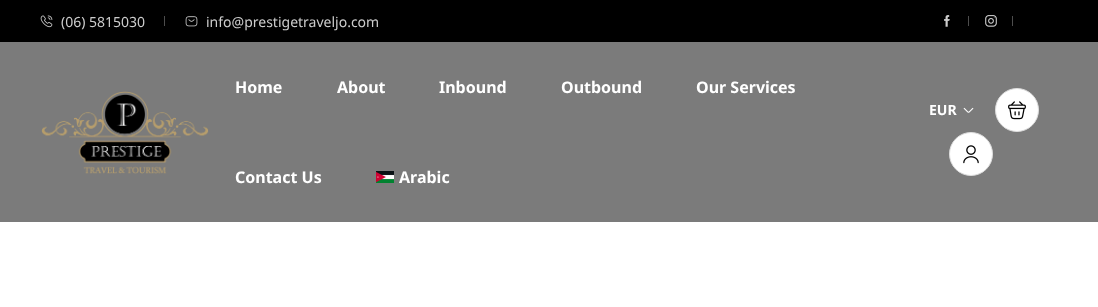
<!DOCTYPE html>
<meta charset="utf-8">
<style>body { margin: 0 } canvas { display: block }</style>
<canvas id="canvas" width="1098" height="307"></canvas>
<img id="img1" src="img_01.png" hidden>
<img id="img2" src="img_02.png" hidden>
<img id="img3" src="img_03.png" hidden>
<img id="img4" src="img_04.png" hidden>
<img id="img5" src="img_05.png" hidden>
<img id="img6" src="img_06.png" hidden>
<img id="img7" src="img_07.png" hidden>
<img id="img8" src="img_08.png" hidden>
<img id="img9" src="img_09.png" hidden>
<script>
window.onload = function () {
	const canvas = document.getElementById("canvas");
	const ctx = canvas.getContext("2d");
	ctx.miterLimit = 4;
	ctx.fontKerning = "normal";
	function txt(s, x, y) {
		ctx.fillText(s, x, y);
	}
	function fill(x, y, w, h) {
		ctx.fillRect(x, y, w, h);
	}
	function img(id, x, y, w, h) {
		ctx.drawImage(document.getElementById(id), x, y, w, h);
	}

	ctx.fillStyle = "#FFFFFF";
	fill(0, 0, 1098, 307);
	ctx.fillStyle = "#000000";
	fill(0, 0, 1098, 42);
	img("img1", 40, 15, 13, 13);
	ctx.fillStyle = "#4D4D4D";
	fill(164, 16, 1, 10);
	img("img2", 185, 16, 13, 11);
	img("img3", 944, 15, 6, 12);
	fill(968, 16, 1, 10);
	img("img4", 985, 15, 12, 12);
	fill(1012, 16, 1, 10);
	ctx.fillStyle = "#7B7B7B";
	fill(0, 42, 1098, 180);
	img("img5", 41, 91, 168, 83);
	img("img6", 376, 171, 18, 12);
	img("img7", 963, 107, 11, 6);
	ctx.fillStyle = "#FFFFFF";
	ctx.beginPath();
	ctx.arc(1017, 110, 21.5, 0, Math.PI * 2);
	ctx.fill();
	ctx.strokeStyle = "#DEDEDE";
	ctx.stroke();
	img("img8", 1008, 101, 18, 19);
	ctx.beginPath();
	ctx.arc(971, 154, 21.5, 0, Math.PI * 2);
	ctx.fill();
	ctx.stroke();
	img("img9", 963, 145, 16, 19);
	ctx.font = "14px Noto Sans";
	ctx.fillStyle = "#CCCCCC";
	txt("(06) 5815030", 61, 27);
	txt("info@prestigetraveljo.com", 206, 27);
	ctx.font = "bold 16px Noto Sans";
	ctx.fillStyle = "#FFFFFF";
	txt("Home", 235, 93);
	txt("About", 337, 93);
	txt("Inbound", 439, 93);
	txt("Outbound", 561, 93);
	txt("Our Services", 696, 93);
	txt("Contact Us", 235, 183);
	txt("Arabic", 399, 183);
	ctx.font = "bold 14px Noto Sans";
	txt("EUR", 929, 115);
};
</script>
